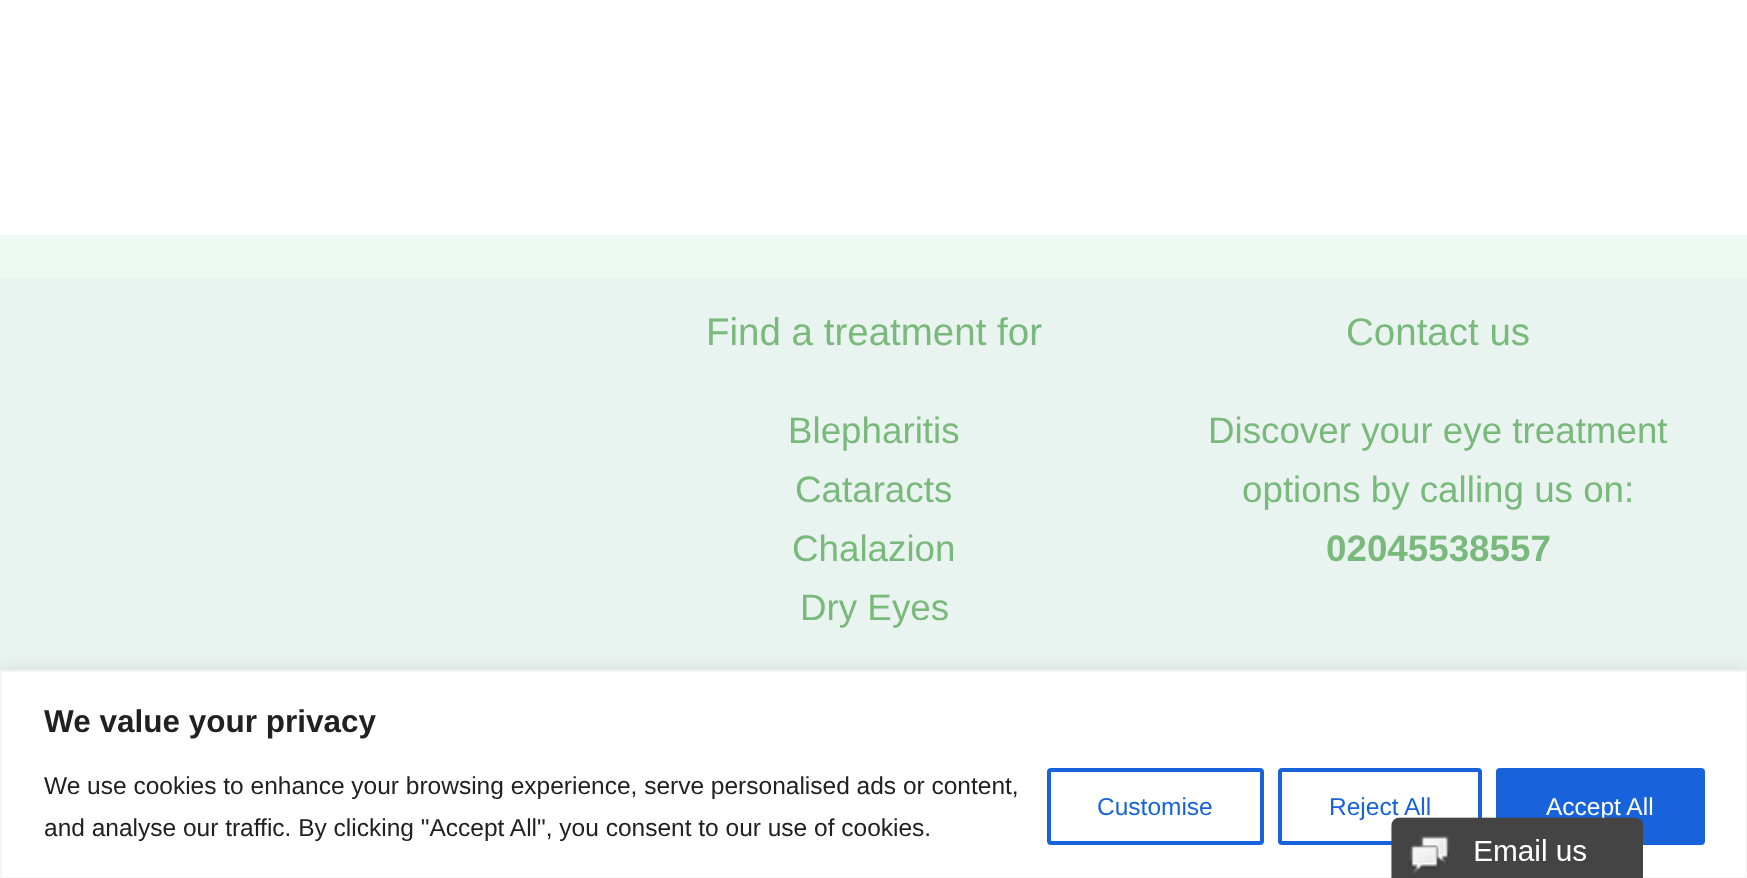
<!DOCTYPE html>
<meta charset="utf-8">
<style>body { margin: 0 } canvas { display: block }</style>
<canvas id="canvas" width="1747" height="878"></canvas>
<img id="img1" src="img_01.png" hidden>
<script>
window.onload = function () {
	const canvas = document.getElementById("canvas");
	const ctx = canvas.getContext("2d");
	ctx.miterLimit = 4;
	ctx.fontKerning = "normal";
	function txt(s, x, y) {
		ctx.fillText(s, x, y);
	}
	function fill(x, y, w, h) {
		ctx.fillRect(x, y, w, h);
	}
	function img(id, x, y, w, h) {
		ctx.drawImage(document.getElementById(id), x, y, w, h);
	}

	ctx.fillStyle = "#FFFFFF";
	fill(0, 0, 1747, 878);
	ctx.fillStyle = "#E9F3EF";
	fill(0, 278, 1747, 392);
	ctx.fillStyle = "#EFF9F4";
	fill(0, 235, 1747, 43);
	ctx.fillStyle = "rgba(172, 171, 171, 0.3)";
	ctx.filter = "blur(9px)";
	ctx.beginPath();
	ctx.rect(0, 669, 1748, 208);
	ctx.fill();
	ctx.filter = "none";
	ctx.fillStyle = "#FFFFFF";
	ctx.beginPath();
	ctx.rect(1, 671, 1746, 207);
	ctx.fill();
	ctx.strokeStyle = "#F4F4F4";
	ctx.lineWidth = 2;
	ctx.stroke();
	ctx.beginPath();
	ctx.roundRect(1049, 770, 213, 73, 2);
	ctx.strokeStyle = "#1863DC";
	ctx.lineWidth = 4;
	ctx.stroke();
	ctx.beginPath();
	ctx.roundRect(1280, 770, 200, 73, 2);
	ctx.stroke();
	ctx.fillStyle = "#1863DC";
	ctx.beginPath();
	ctx.roundRect(1498, 770, 205, 73, 2);
	ctx.fill();
	ctx.stroke();
	ctx.font = "38.5px Liberation Sans";
	ctx.fillStyle = "#79B97B";
	txt("Find a treatment for", 706, 345);
	ctx.font = "36.75px Liberation Sans";
	txt("Blepharitis", 788, 443);
	txt("Cataracts", 795, 502);
	txt("Chalazion", 792, 561);
	txt("Dry Eyes", 800, 620);
	ctx.font = "38.5px Liberation Sans";
	txt("Contact us", 1346, 345);
	ctx.font = "36.75px Liberation Sans";
	txt("Discover your eye treatment", 1208, 443);
	txt("options by calling us on:", 1242, 502);
	ctx.font = "bold 36.75px Liberation Sans";
	txt("02045538557", 1326, 561);
	ctx.font = "bold 31.5px Liberation Sans";
	ctx.fillStyle = "#212121";
	txt("We value your privacy", 44, 732);
	ctx.font = "24.5px Liberation Sans";
	txt("We use cookies to enhance your browsing experience, serve personalised ads or content,", 44, 794);
	txt("and analyse our traffic. By clicking \"Accept All\", you consent to our use of cookies.", 44, 836);
	ctx.fillStyle = "#1863DC";
	txt("Customise", 1097, 815);
	txt("Reject All", 1329, 815);
	ctx.fillStyle = "#FFFFFF";
	txt("Accept All", 1546, 815);
	img("img1", 1391, 817, 252, 61);
};
</script>
